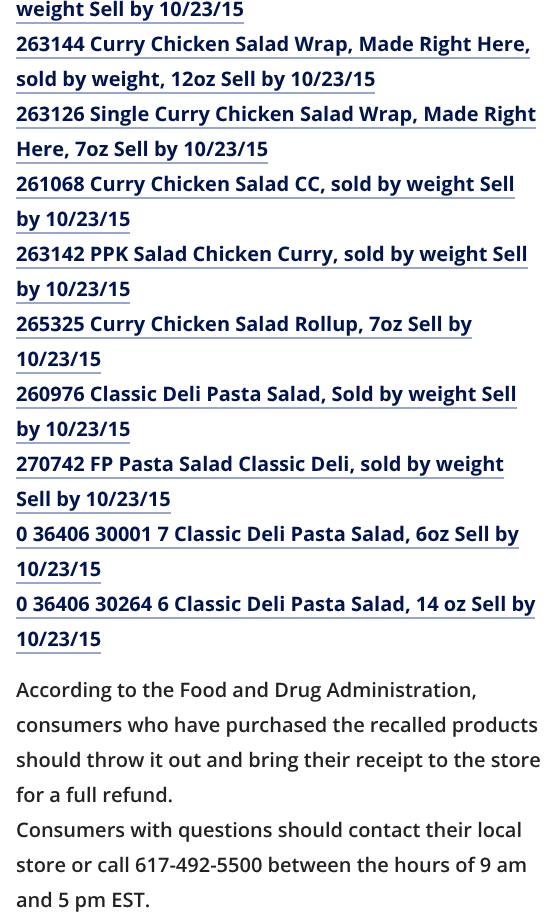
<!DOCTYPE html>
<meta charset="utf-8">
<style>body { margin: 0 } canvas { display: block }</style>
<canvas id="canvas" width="558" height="920"></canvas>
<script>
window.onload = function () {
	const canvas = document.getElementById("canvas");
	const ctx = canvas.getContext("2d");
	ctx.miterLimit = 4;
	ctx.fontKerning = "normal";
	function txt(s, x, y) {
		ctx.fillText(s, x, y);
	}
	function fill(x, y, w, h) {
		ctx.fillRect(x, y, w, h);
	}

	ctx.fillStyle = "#FFFFFF";
	fill(0, 0, 558, 920);
	ctx.fillStyle = "#99A7CC";
	fill(16, 22, 228, 2);
	fill(16, 57, 514, 2);
	fill(16, 92, 359, 2);
	fill(16, 127, 520, 2);
	fill(16, 162, 252, 2);
	fill(16, 197, 499, 2);
	fill(16, 232, 114, 2);
	fill(16, 267, 512, 2);
	fill(16, 302, 114, 2);
	fill(16, 337, 456, 2);
	fill(16, 372, 85, 2);
	fill(16, 407, 501, 2);
	fill(16, 442, 114, 2);
	fill(16, 477, 488, 2);
	fill(16, 512, 155, 2);
	fill(16, 547, 503, 2);
	fill(16, 582, 85, 2);
	fill(16, 617, 519, 2);
	fill(16, 652, 85, 2);
	ctx.font = "bold 20px Open Sans";
	ctx.fillStyle = "#00144E";
	txt("weight Sell by 10/23/15", 16, 16);
	txt("263144 Curry Chicken Salad Wrap, Made Right Here,", 16, 51);
	txt("sold by weight, 12oz Sell by 10/23/15", 16, 86);
	txt("263126 Single Curry Chicken Salad Wrap, Made Right", 16, 121);
	txt("Here, 7oz Sell by 10/23/15", 16, 156);
	txt("261068 Curry Chicken Salad CC, sold by weight Sell", 16, 191);
	txt("by 10/23/15", 16, 226);
	txt("263142 PPK Salad Chicken Curry, sold by weight Sell", 16, 261);
	txt("by 10/23/15", 16, 296);
	txt("265325 Curry Chicken Salad Rollup, 7oz Sell by", 16, 331);
	txt("10/23/15", 16, 366);
	txt("260976 Classic Deli Pasta Salad, Sold by weight Sell", 16, 401);
	txt("by 10/23/15", 16, 436);
	txt("270742 FP Pasta Salad Classic Deli, sold by weight", 16, 471);
	txt("Sell by 10/23/15", 16, 506);
	txt("0 36406 30001 7 Classic Deli Pasta Salad, 6oz Sell by", 16, 541);
	txt("10/23/15", 16, 576);
	txt("0 36406 30264 6 Classic Deli Pasta Salad, 14 oz Sell by", 16, 611);
	txt("10/23/15", 16, 646);
	ctx.font = "600 20px Open Sans";
	ctx.fillStyle = "#222222";
	txt("According to the Food and Drug Administration,", 16, 697);
	txt("consumers who have purchased the recalled products", 16, 732);
	txt("should throw it out and bring their receipt to the store", 16, 767);
	txt("for a full refund.", 16, 802);
	txt("Consumers with questions should contact their local", 16, 837);
	txt("store or call 617-492-5500 between the hours of 9 am", 16, 872);
	txt("and 5 pm EST.", 16, 907);
};
</script>
